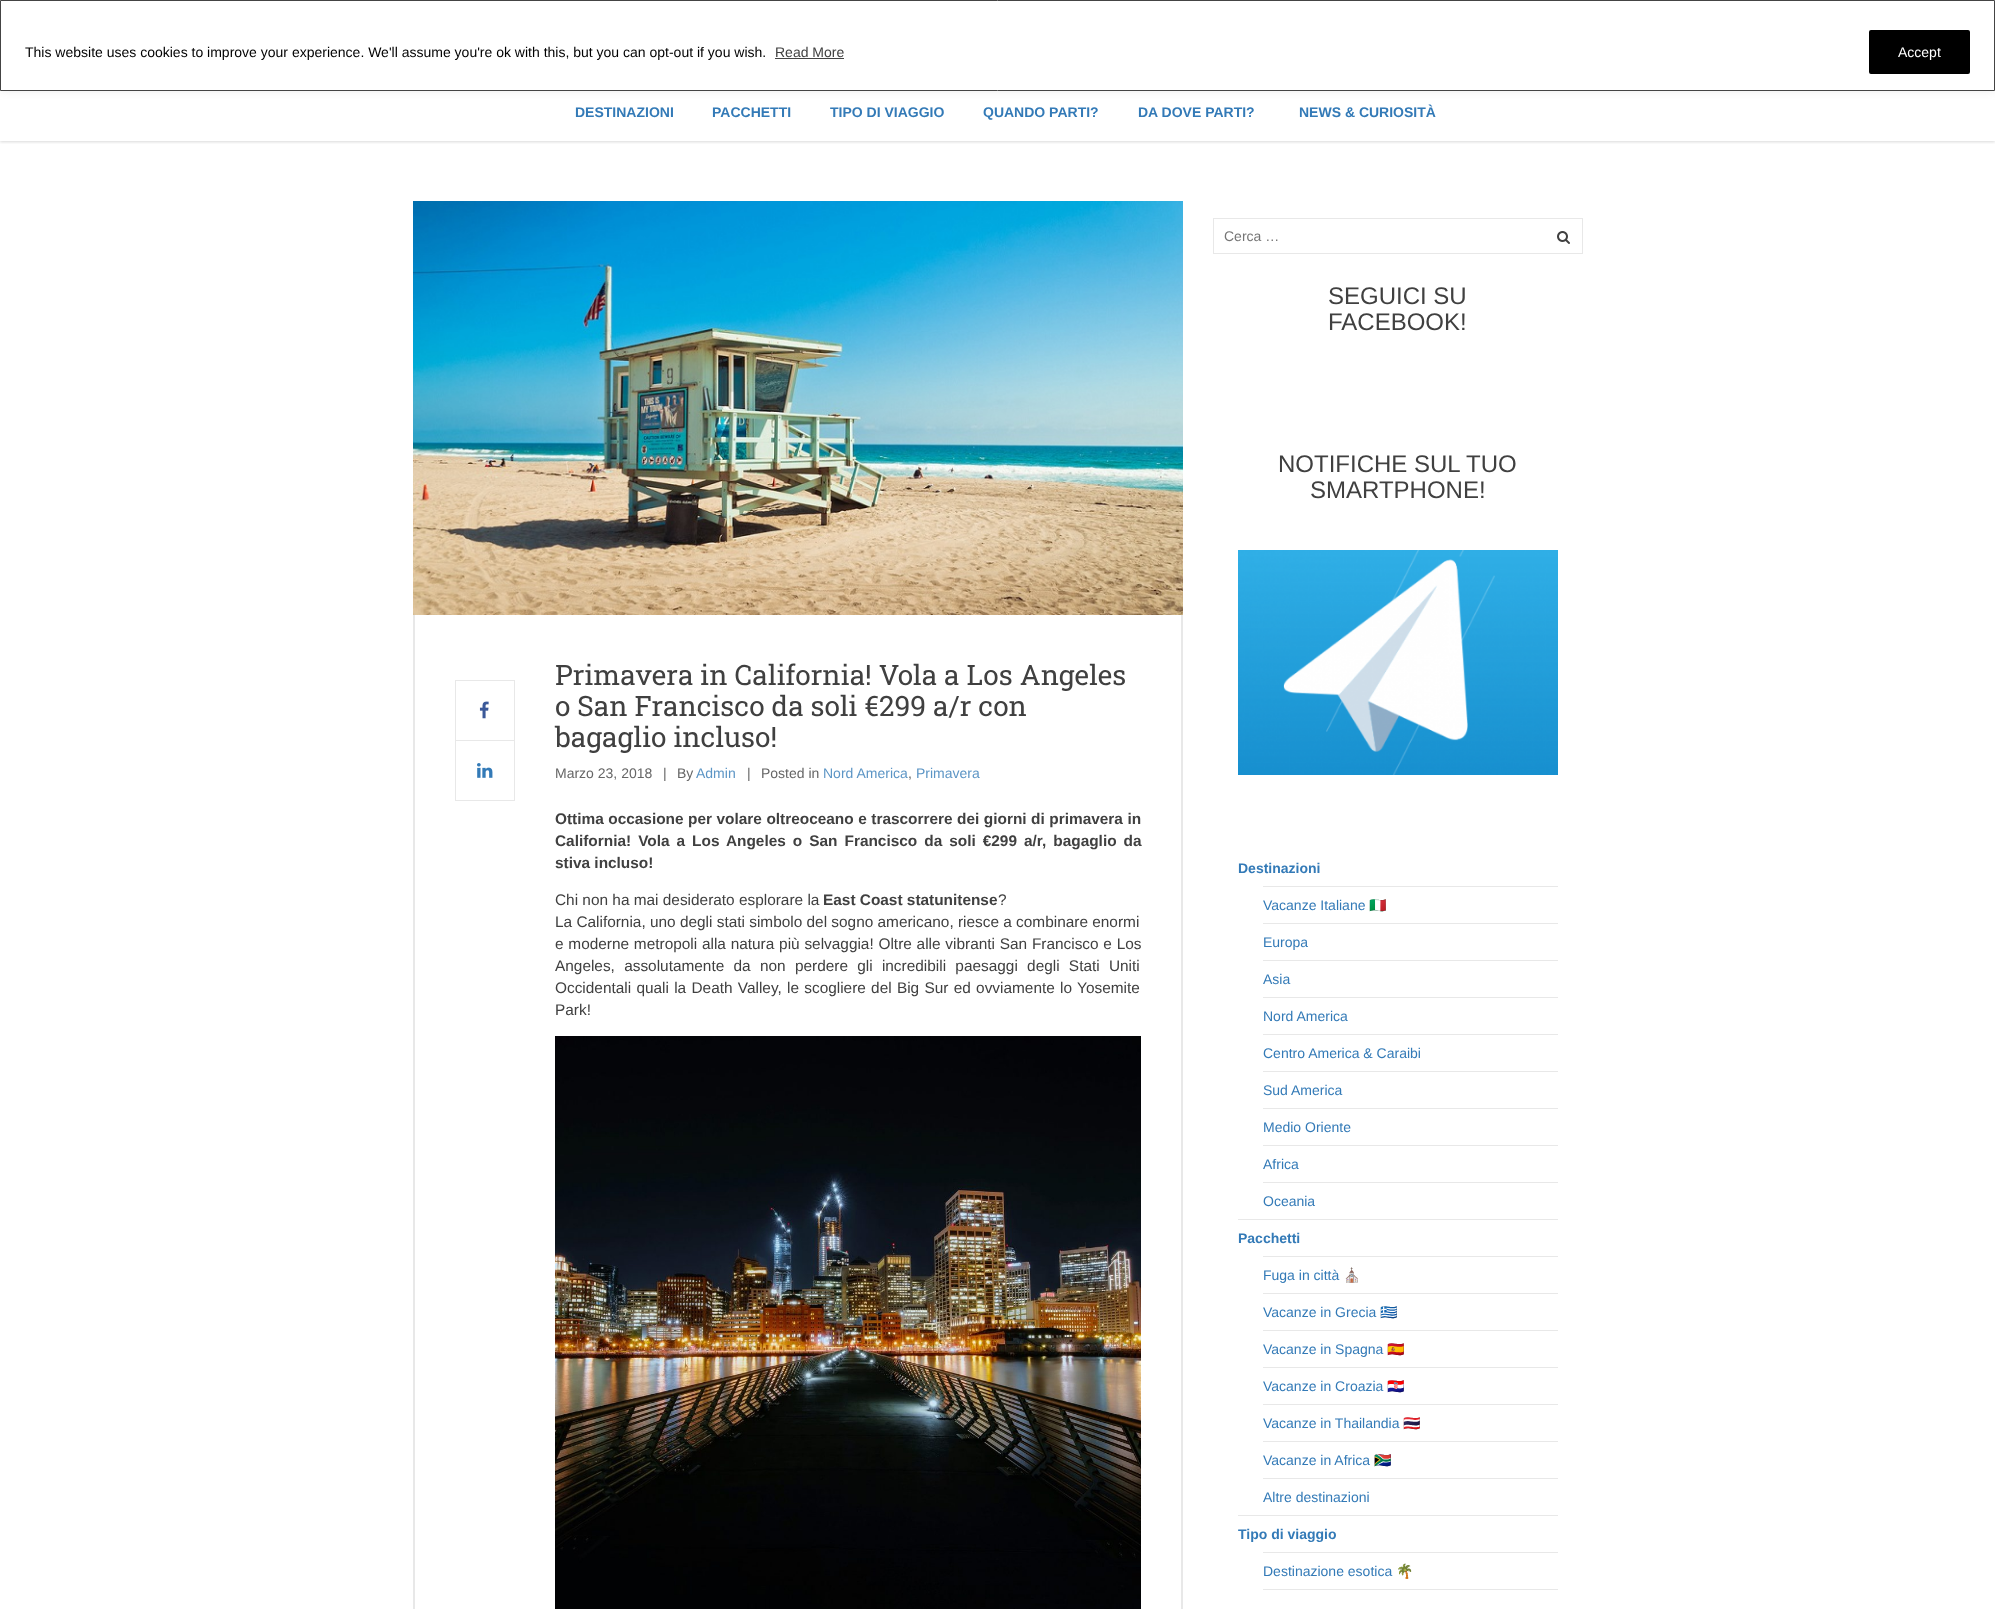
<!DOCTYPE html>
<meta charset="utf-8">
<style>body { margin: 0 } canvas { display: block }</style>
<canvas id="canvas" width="1995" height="1609"></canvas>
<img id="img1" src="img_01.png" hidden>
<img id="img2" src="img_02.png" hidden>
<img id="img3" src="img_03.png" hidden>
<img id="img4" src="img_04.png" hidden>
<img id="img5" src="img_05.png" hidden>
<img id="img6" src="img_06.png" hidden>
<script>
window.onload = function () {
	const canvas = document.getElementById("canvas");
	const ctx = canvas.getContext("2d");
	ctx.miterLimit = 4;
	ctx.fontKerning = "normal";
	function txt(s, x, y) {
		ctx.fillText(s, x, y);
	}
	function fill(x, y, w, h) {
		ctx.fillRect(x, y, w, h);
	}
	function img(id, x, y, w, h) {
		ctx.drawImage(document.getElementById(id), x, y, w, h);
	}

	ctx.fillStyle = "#FFFFFF";
	fill(0, 0, 1995, 1609);
	ctx.fillStyle = "rgba(172, 171, 171, 0.3)";
	ctx.filter = "blur(5px)";
	ctx.beginPath();
	ctx.rect(0, -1, 1995, 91);
	ctx.fill();
	ctx.filter = "none";
	ctx.save();
	ctx.beginPath();
	ctx.rect(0, 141, 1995, 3);
	ctx.clip();
	ctx.fillStyle = "rgba(0, 0, 0, 0.15)";
	ctx.filter = "blur(1.5px)";
	ctx.beginPath();
	ctx.rect(0, 1, 1995, 141);
	ctx.fill();
	ctx.filter = "none";
	ctx.restore();
	ctx.fillStyle = "#FFFFFF";
	ctx.beginPath();
	ctx.rect(0.5, 0.5, 1994, 90);
	ctx.fill();
	ctx.strokeStyle = "#444444";
	ctx.stroke();
	ctx.fillStyle = "#444444";
	fill(775, 58, 69, 1);
	ctx.fillStyle = "#000000";
	ctx.beginPath();
	ctx.roundRect(1870, 31, 99, 42, 1);
	ctx.fill();
	ctx.strokeStyle = "#000000";
	ctx.lineWidth = 2;
	ctx.stroke();
	ctx.strokeStyle = "#E8E8E8";
	ctx.strokeRect(414, 614, 768, 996);
	img("img1", 413, 201, 770, 414);
	ctx.fillStyle = "#E8E8E8";
	fill(455, 680, 60, 1);
	fill(514, 680, 1, 121);
	fill(455, 680, 1, 121);
	fill(456, 740, 58, 1);
	img("img2", 479, 701, 10, 18);
	fill(456, 800, 58, 1);
	img("img3", 477, 763, 16, 15);
	img("img4", 555, 1036, 586, 573);
	ctx.lineWidth = 1;
	ctx.strokeRect(1213.5, 218.5, 369, 35);
	img("img5", 1557, 231, 13, 13);
	img("img6", 1238, 550, 320, 225);
	fill(1238, 1219, 320, 1);
	fill(1263, 886, 295, 1);
	fill(1263, 923, 295, 1);
	fill(1263, 960, 295, 1);
	fill(1263, 997, 295, 1);
	fill(1263, 1034, 295, 1);
	fill(1263, 1071, 295, 1);
	fill(1263, 1108, 295, 1);
	fill(1263, 1145, 295, 1);
	fill(1263, 1182, 295, 1);
	fill(1238, 1515, 320, 1);
	fill(1263, 1256, 295, 1);
	fill(1263, 1293, 295, 1);
	fill(1263, 1330, 295, 1);
	fill(1263, 1367, 295, 1);
	fill(1263, 1404, 295, 1);
	fill(1263, 1441, 295, 1);
	fill(1263, 1478, 295, 1);
	fill(1263, 1552, 295, 1);
	fill(1263, 1589, 295, 1);
	ctx.font = "14px Liberation Sans";
	ctx.fillStyle = "#000000";
	txt("This website uses cookies to improve your experience. We'll assume you're ok with this, but you can opt-out if you wish.", 25, 57);
	ctx.fillStyle = "#404040";
	txt("Read More", 775, 57);
	ctx.fillStyle = "#FFFFFF";
	txt("Accept", 1898, 57);
	ctx.font = "bold 14px Liberation Sans";
	ctx.fillStyle = "#337AB7";
	txt("DESTINAZIONI", 575, 117);
	txt("PACCHETTI", 712, 117);
	txt("TIPO DI VIAGGIO", 830, 117);
	txt("QUANDO PARTI?", 983, 117);
	txt("DA DOVE PARTI?", 1138, 117);
	txt("NEWS & CURIOSITÀ", 1299, 117);
	ctx.font = "28px Roboto Slab";
	ctx.fillStyle = "#404040";
	txt("Primavera in California! Vola a Los Angeles", 555, 685);
	txt("o San Francisco da soli €299 a/r con", 555, 716);
	txt("bagaglio incluso!", 555, 747);
	ctx.font = "14px Liberation Sans";
	ctx.fillStyle = "#666666";
	txt("Marzo 23, 2018", 555, 778);
	txt("|", 663, 778);
	txt("By", 677, 778);
	ctx.fillStyle = "#5C95C5";
	txt("Admin", 696, 778);
	ctx.fillStyle = "#666666";
	txt("|", 747, 778);
	txt("Posted in", 761, 778);
	ctx.fillStyle = "#5C95C5";
	txt("Nord America", 823, 778);
	ctx.fillStyle = "#666666";
	txt(",", 908, 778);
	ctx.fillStyle = "#5C95C5";
	txt("Primavera", 916, 778);
	ctx.wordSpacing = "0.25px";
	ctx.font = "bold 15.4px Liberation Sans";
	ctx.fillStyle = "#404040";
	txt("Ottima occasione per volare oltreoceano e trascorrere dei giorni di primavera in", 555, 824);
	ctx.wordSpacing = "2.75px";
	txt("California! Vola a Los Angeles o San Francisco da soli €299 a/r, bagaglio da", 555, 846);
	ctx.wordSpacing = "0px";
	txt("stiva incluso!", 555, 868);
	ctx.font = "15.4px Liberation Sans";
	txt("Chi non ha mai desiderato esplorare la", 555, 905);
	ctx.font = "bold 15.4px Liberation Sans";
	txt("East Coast statunitense", 823, 905);
	ctx.font = "15.4px Liberation Sans";
	txt("?", 998, 905);
	txt("La California, uno degli stati simbolo del sogno americano, riesce a combinare enormi", 555, 927);
	ctx.wordSpacing = "0.5px";
	txt("e moderne metropoli alla natura più selvaggia! Oltre alle vibranti San Francisco e Los", 555, 949);
	ctx.wordSpacing = "5px";
	txt("Angeles, assolutamente da non perdere gli incredibili paesaggi degli Stati Uniti", 555, 971);
	ctx.wordSpacing = "1px";
	txt("Occidentali quali la Death Valley, le scogliere del Big Sur ed ovviamente lo Yosemite", 555, 993);
	ctx.wordSpacing = "0px";
	txt("Park!", 555, 1015);
	ctx.font = "14px Liberation Sans";
	ctx.fillStyle = "#757575";
	txt("Cerca …", 1224, 241);
	ctx.font = "24px Liberation Sans";
	ctx.fillStyle = "#404040";
	txt("SEGUICI SU", 1328, 304);
	txt("FACEBOOK!", 1328, 330);
	txt("NOTIFICHE SUL TUO", 1278, 472);
	txt("SMARTPHONE!", 1310, 498);
	ctx.font = "bold 14px Liberation Sans";
	ctx.fillStyle = "#337AB7";
	txt("Destinazioni", 1238, 873);
	ctx.font = "14px Liberation Sans";
	txt("Vacanze Italiane", 1263, 910);
	ctx.font = "14px Noto Color Emoji";
	txt("🇮🇹", 1369, 910);
	ctx.font = "14px Liberation Sans";
	txt("Europa", 1263, 947);
	txt("Asia", 1263, 984);
	txt("Nord America", 1263, 1021);
	txt("Centro America & Caraibi", 1263, 1058);
	txt("Sud America", 1263, 1095);
	txt("Medio Oriente", 1263, 1132);
	txt("Africa", 1263, 1169);
	txt("Oceania", 1263, 1206);
	ctx.font = "bold 14px Liberation Sans";
	txt("Pacchetti", 1238, 1243);
	ctx.font = "14px Liberation Sans";
	txt("Fuga in città", 1263, 1280);
	ctx.font = "14px Noto Color Emoji";
	txt("⛪", 1343, 1280);
	ctx.font = "14px Liberation Sans";
	txt("Vacanze in Grecia", 1263, 1317);
	ctx.font = "14px Noto Color Emoji";
	txt("🇬🇷", 1380, 1317);
	ctx.font = "14px Liberation Sans";
	txt("Vacanze in Spagna", 1263, 1354);
	ctx.font = "14px Noto Color Emoji";
	txt("🇪🇸", 1387, 1354);
	ctx.font = "14px Liberation Sans";
	txt("Vacanze in Croazia", 1263, 1391);
	ctx.font = "14px Noto Color Emoji";
	txt("🇭🇷", 1387, 1391);
	ctx.font = "14px Liberation Sans";
	txt("Vacanze in Thailandia", 1263, 1428);
	ctx.font = "14px Noto Color Emoji";
	txt("🇹🇭", 1403, 1428);
	ctx.font = "14px Liberation Sans";
	txt("Vacanze in Africa", 1263, 1465);
	ctx.font = "14px Noto Color Emoji";
	txt("🇿🇦", 1374, 1465);
	ctx.font = "14px Liberation Sans";
	txt("Altre destinazioni", 1263, 1502);
	ctx.font = "bold 14px Liberation Sans";
	txt("Tipo di viaggio", 1238, 1539);
	ctx.font = "14px Liberation Sans";
	txt("Destinazione esotica", 1263, 1576);
	ctx.font = "14px Noto Color Emoji";
	txt("🌴", 1396, 1576);
};
</script>
